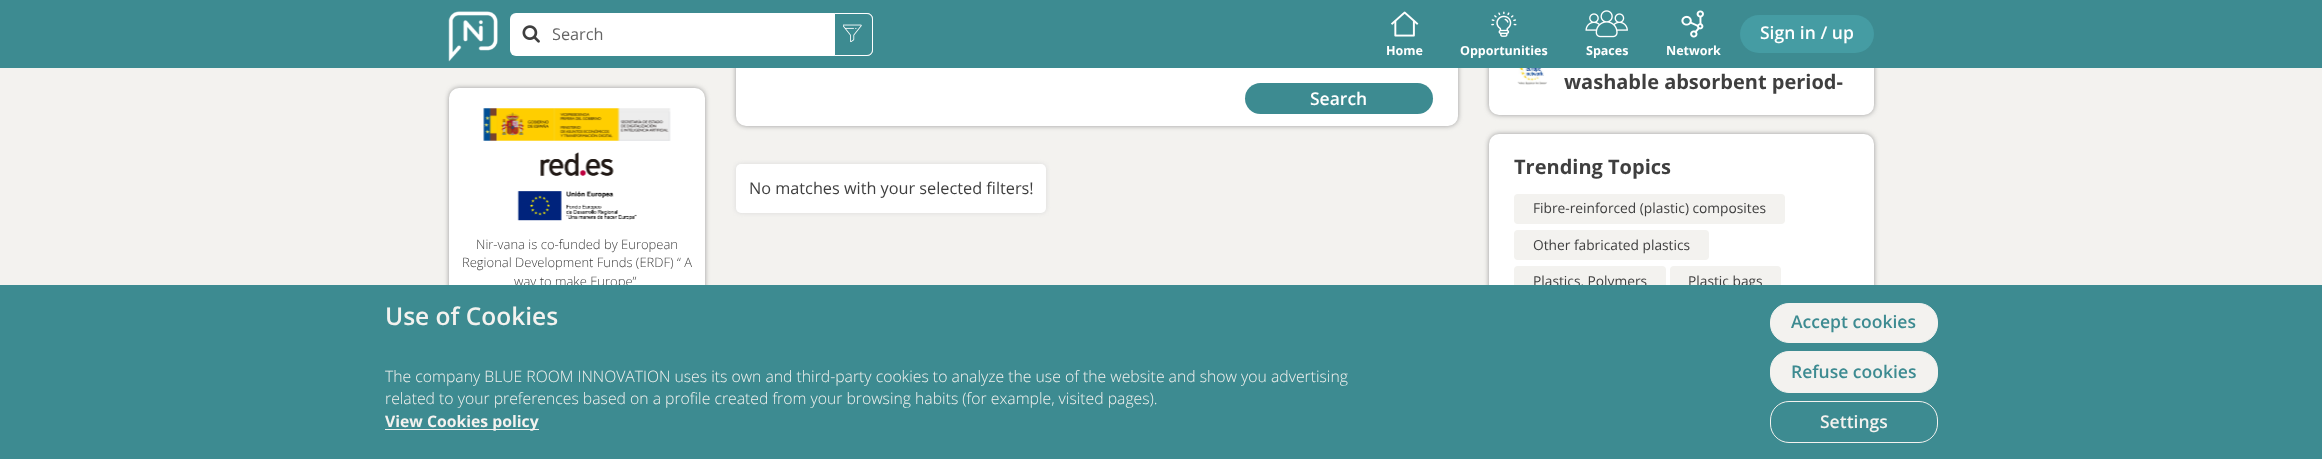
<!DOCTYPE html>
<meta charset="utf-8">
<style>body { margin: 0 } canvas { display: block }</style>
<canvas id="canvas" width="2322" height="459"></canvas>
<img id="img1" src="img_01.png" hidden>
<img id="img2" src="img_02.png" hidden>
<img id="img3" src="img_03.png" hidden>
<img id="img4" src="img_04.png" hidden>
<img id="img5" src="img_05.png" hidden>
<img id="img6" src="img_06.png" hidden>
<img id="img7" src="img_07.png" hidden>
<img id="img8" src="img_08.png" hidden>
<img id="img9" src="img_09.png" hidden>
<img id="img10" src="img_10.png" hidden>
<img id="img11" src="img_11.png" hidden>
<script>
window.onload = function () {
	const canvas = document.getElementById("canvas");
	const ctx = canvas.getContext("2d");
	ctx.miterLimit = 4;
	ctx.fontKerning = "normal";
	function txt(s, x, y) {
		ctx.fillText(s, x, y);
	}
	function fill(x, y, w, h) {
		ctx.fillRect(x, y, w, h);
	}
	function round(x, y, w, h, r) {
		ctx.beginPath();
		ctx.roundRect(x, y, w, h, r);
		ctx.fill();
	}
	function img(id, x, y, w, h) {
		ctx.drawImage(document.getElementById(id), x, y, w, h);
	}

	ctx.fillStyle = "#F3F2EF";
	fill(0, 0, 2322, 459);
	ctx.fillStyle = "#999999";
	ctx.filter = "blur(2.5px)";
	ctx.beginPath();
	ctx.roundRect(736, -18, 722, 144, 10);
	ctx.fill();
	ctx.filter = "none";
	ctx.fillStyle = "#FFFFFF";
	round(736, -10, 722, 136, 10);
	ctx.fillStyle = "#999999";
	ctx.filter = "blur(2.5px)";
	ctx.beginPath();
	ctx.roundRect(1489, -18, 385, 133, 10);
	ctx.fill();
	ctx.filter = "none";
	ctx.fillStyle = "#FFFFFF";
	round(1489, -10, 385, 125, 10);
	ctx.fillStyle = "#3D8B91";
	fill(0, 0, 2322, 68);
	img("img1", 448, 11, 50, 51);
	ctx.fillStyle = "#FFFFFF";
	round(510, 13, 363, 43, 6);
	img("img2", 522, 25, 18, 18);
	ctx.fillStyle = "#3D8B91";
	ctx.beginPath();
	ctx.roundRect(834.5, 13.5, 38, 42, [0, 5.5, 5.5, 0]);
	ctx.fill();
	ctx.strokeStyle = "#FFFFFF";
	ctx.stroke();
	img("img3", 843, 24, 19, 19);
	ctx.fillStyle = "#459CA3";
	round(1740, 15, 134, 38, 19);
	img("img4", 1391, 11, 28, 26);
	img("img5", 1491, 11, 26, 26);
	img("img6", 1585, 10, 43, 28);
	img("img7", 1681, 10, 23, 28);
	ctx.fillStyle = "#3D8B91";
	round(1245, 83, 188, 31, 15.5);
	ctx.fillStyle = "#DADADA";
	ctx.filter = "blur(2px)";
	ctx.beginPath();
	ctx.roundRect(736, 164, 310, 49, 5);
	ctx.fill();
	ctx.filter = "none";
	ctx.fillStyle = "#FFFFFF";
	round(736, 164, 310, 49, 5);
	img("img8", 1517, 68, 31, 17);
	ctx.fillStyle = "#999999";
	ctx.filter = "blur(2.5px)";
	ctx.beginPath();
	ctx.roundRect(1489, 134, 385, 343, 10);
	ctx.fill();
	ctx.filter = "none";
	ctx.fillStyle = "#FFFFFF";
	round(1489, 134, 385, 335, 10);
	ctx.fillStyle = "#F3F2EF";
	round(1514, 194, 271, 30, 4);
	round(1514, 230, 195, 30, 4);
	round(1514, 266, 152, 30, 4);
	round(1670, 266, 111, 30, 4);
	ctx.fillStyle = "#999999";
	ctx.filter = "blur(2.5px)";
	ctx.beginPath();
	ctx.roundRect(449, 88, 256, 223, 10);
	ctx.fill();
	ctx.filter = "none";
	ctx.fillStyle = "#FFFFFF";
	round(449, 88, 256, 223, 10);
	img("img9", 483, 108, 188, 33);
	img("img10", 540, 152, 74, 24);
	img("img11", 517, 191, 120, 30);
	ctx.save();
	ctx.beginPath();
	ctx.rect(553, 23, 270, 22);
	ctx.clip();
	ctx.font = "16.25px Open Sans";
	ctx.fillStyle = "#656565";
	txt("Search", 552, 40);
	ctx.restore();
	ctx.font = "600 17.5px Open Sans";
	txt("Sign in / up", 1760, 39);
	ctx.font = "bold 12.5px Open Sans";
	txt("Home", 1386, 55);
	txt("Opportunities", 1460, 55);
	txt("Spaces", 1586, 55);
	txt("Network", 1666, 55);
	ctx.font = "600 17.5px Open Sans";
	txt("Search", 1310, 105);
	ctx.font = "16.25px Open Sans";
	ctx.fillStyle = "#3F3F3F";
	txt("No matches with your selected filters!", 749, 194);
	ctx.font = "bold 20px Open Sans";
	txt("washable absorbent period-", 1564, 89);
	txt("Trending Topics", 1514, 174);
	ctx.font = "13.75px Open Sans";
	txt("Fibre-reinforced (plastic) composites", 1533, 213);
	txt("Other fabricated plastics", 1533, 250);
	txt("Plastics, Polymers", 1533, 286);
	txt("Plastic bags", 1688, 286);
	ctx.font = "300 13px Open Sans";
	txt("Nir-vana is co-funded by European", 476, 249);
	txt("Regional Development Funds (ERDF) “ A", 462, 267);
	txt("way to make Europe”", 514, 286);
	ctx.fillStyle = "#3D8B91";
	fill(0, 285, 2322, 174);
	ctx.font = "600 24.5px Open Sans";
	ctx.fillStyle = "#F3F2EF";
	txt("Use of Cookies", 385, 325);
	ctx.font = "300 15.75px Open Sans";
	txt("The company BLUE ROOM INNOVATION uses its own and third-party cookies to analyze the use of the website and show you advertising", 385, 382);
	txt("related to your preferences based on a profile created from your browsing habits (for example, visited pages).", 385, 404);
	fill(385, 429, 154, 1);
	ctx.font = "bold 15.75px Open Sans";
	txt("View Cookies policy", 385, 427);
	ctx.beginPath();
	ctx.roundRect(1770.5, 303.5, 167, 39, 18.5);
	ctx.fill();
	ctx.strokeStyle = "#F3F2EF";
	ctx.stroke();
	ctx.font = "600 17.5px Open Sans";
	ctx.fillStyle = "#3D8B91";
	txt("Accept cookies", 1791, 328);
	ctx.fillStyle = "#F3F2EF";
	ctx.beginPath();
	ctx.roundRect(1770.5, 351.5, 167, 41, 18.5);
	ctx.fill();
	ctx.stroke();
	ctx.fillStyle = "#3D8B91";
	txt("Refuse cookies", 1791, 378);
	ctx.beginPath();
	ctx.roundRect(1770.5, 401.5, 167, 41, 18.5);
	ctx.stroke();
	ctx.fillStyle = "#F3F2EF";
	txt("Settings", 1820, 428);
};
</script>
